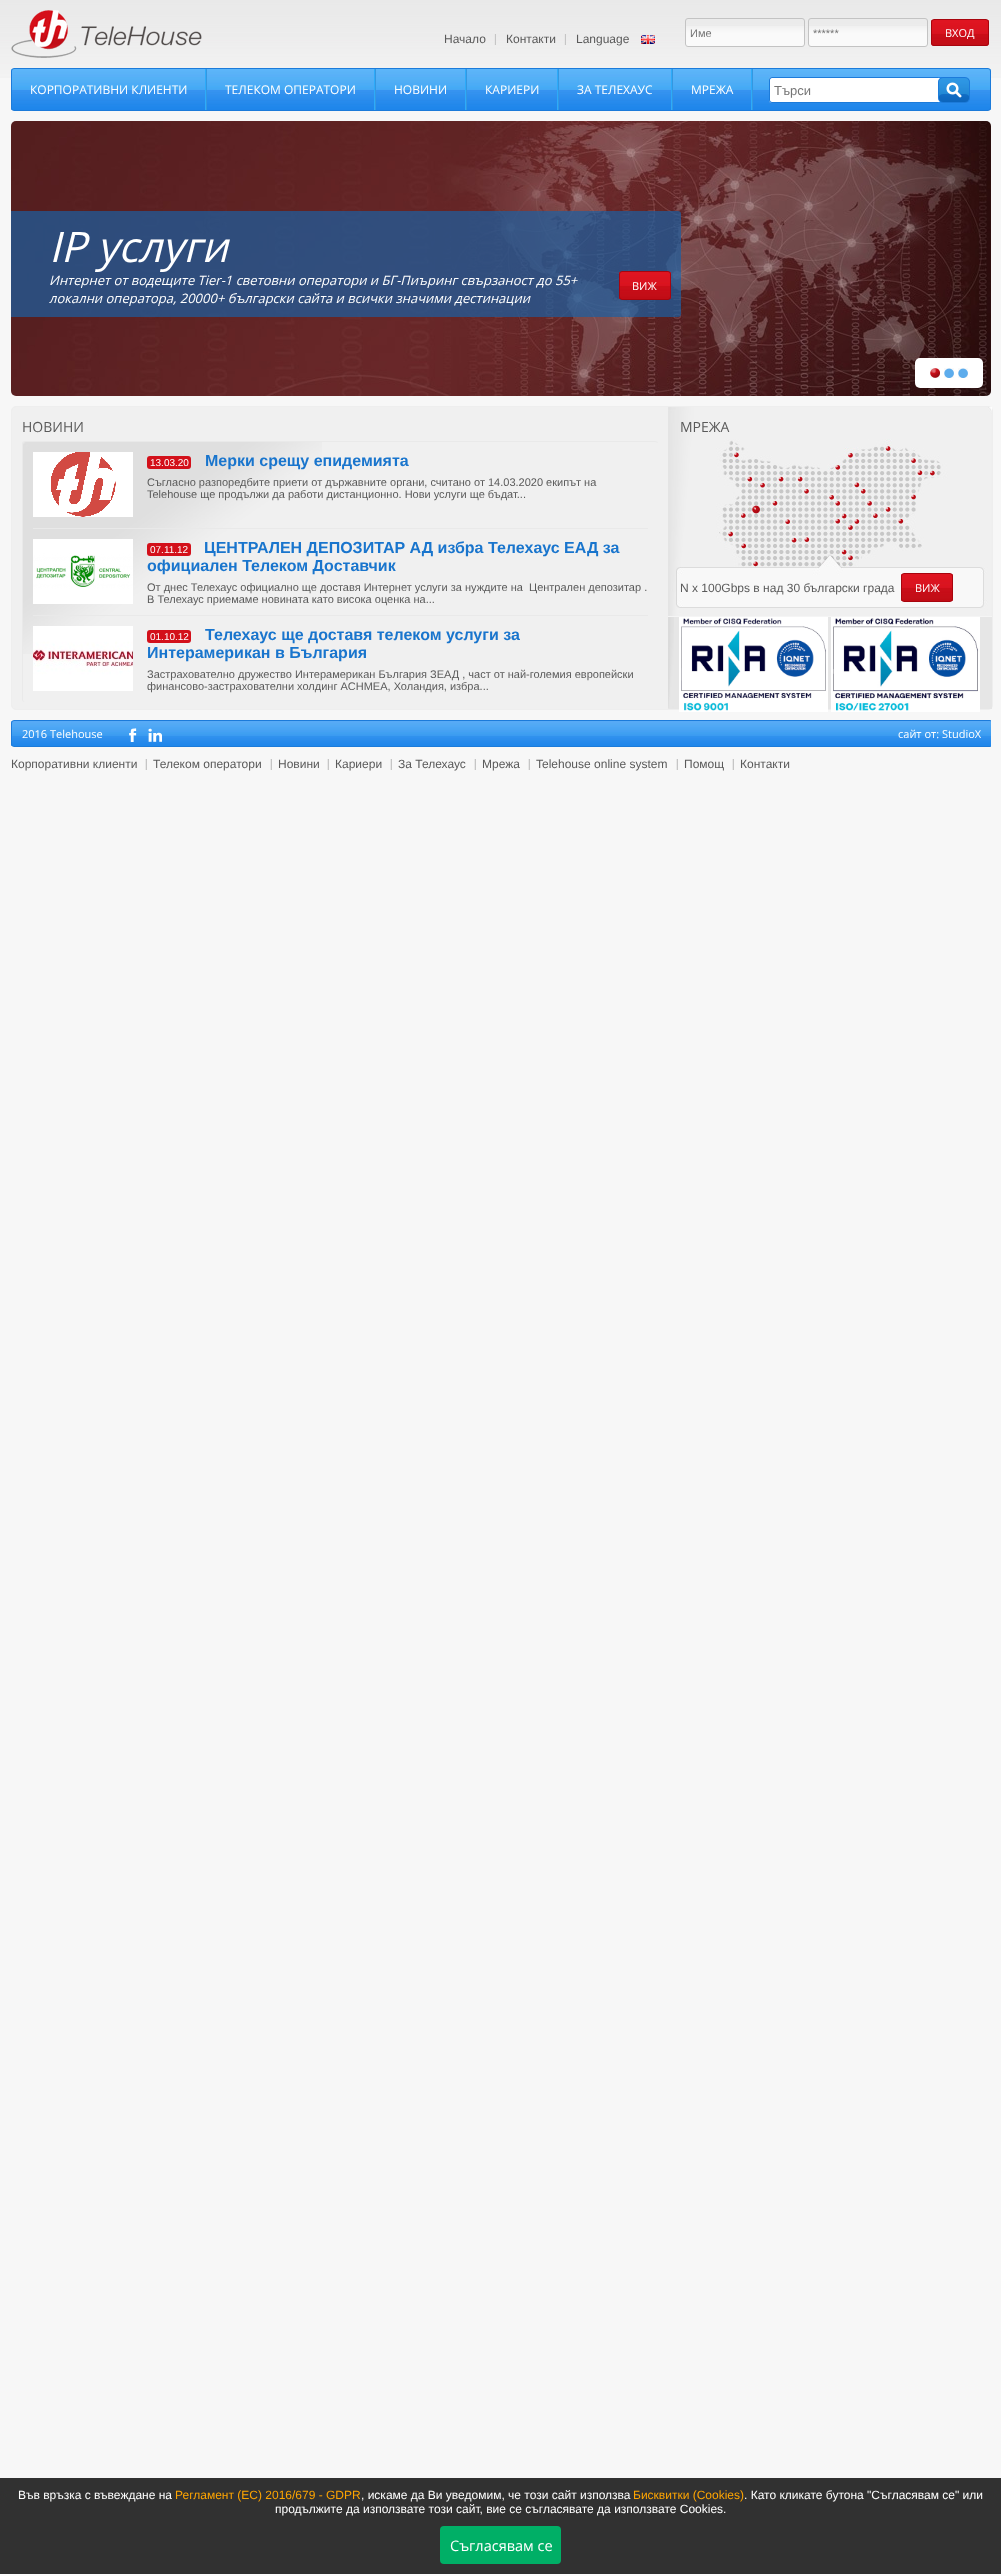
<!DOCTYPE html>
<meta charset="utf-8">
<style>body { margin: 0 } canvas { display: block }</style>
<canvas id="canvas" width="1001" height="2574"></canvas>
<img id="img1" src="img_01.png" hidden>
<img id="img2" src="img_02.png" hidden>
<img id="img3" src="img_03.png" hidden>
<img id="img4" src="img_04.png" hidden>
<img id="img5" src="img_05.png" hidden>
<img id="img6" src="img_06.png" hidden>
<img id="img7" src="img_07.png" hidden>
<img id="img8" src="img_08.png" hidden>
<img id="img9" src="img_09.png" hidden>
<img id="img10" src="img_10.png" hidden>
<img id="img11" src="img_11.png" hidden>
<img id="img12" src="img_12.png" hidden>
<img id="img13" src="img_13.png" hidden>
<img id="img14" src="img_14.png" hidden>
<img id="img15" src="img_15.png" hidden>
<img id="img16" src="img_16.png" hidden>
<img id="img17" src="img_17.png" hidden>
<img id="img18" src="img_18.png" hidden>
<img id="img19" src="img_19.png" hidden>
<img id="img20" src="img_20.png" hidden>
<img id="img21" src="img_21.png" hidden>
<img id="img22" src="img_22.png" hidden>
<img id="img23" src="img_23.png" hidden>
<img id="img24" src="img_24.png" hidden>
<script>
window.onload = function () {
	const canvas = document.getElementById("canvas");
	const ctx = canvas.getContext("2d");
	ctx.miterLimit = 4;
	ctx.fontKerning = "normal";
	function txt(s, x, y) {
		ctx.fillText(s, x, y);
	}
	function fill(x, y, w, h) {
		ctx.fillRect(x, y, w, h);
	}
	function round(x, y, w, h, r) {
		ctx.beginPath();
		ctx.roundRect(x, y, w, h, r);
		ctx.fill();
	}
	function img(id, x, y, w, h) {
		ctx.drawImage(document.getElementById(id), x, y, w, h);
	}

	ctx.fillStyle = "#F7F7F7";
	fill(0, 0, 1001, 2574);
	img("img1", 0, 0, 1001, 78);
	img("img2", 11, 10, 191, 48);
	img("img3", 494, 34, 2, 11);
	img("img3", 564, 34, 2, 11);
	img("img4", 641, 35, 14, 9);
	img("img5", 685, 26, 120, 20);
	ctx.beginPath();
	ctx.roundRect(685.5, 18.5, 119, 28, 2.5);
	ctx.strokeStyle = "#C3C3C3";
	ctx.stroke();
	img("img5", 808, 26, 120, 20);
	ctx.beginPath();
	ctx.roundRect(808.5, 18.5, 119, 28, 2.5);
	ctx.stroke();
	img("img6", 931, 20, 58, 26);
	ctx.beginPath();
	ctx.roundRect(931.5, 19.5, 57, 26, 2.5);
	ctx.strokeStyle = "#A8050E";
	ctx.stroke();
	img("img7", 11, 69, 980, 41);
	ctx.beginPath();
	ctx.roundRect(11.5, 68.5, 979, 42, 2.5);
	ctx.strokeStyle = "#1C7BDA";
	ctx.stroke();
	ctx.fillStyle = "#2DABFA";
	fill(205, 69, 1, 41);
	fill(374, 69, 1, 41);
	ctx.fillStyle = "#3497E0";
	fill(206, 69, 1, 41);
	ctx.fillStyle = "#2DABFA";
	fill(465, 69, 1, 41);
	ctx.fillStyle = "#3497E0";
	fill(375, 69, 1, 41);
	ctx.fillStyle = "#2DABFA";
	fill(557, 69, 1, 41);
	ctx.fillStyle = "#3497E0";
	fill(466, 69, 1, 41);
	ctx.fillStyle = "#2DABFA";
	fill(671, 69, 1, 41);
	ctx.fillStyle = "#3497E0";
	fill(558, 69, 1, 41);
	ctx.fillStyle = "#2DABFA";
	fill(751, 69, 1, 41);
	ctx.fillStyle = "#3497E0";
	fill(672, 69, 1, 41);
	fill(752, 69, 1, 41);
	ctx.fillStyle = "#FFFFFF";
	ctx.beginPath();
	ctx.roundRect(769, 77, 171, 26, [3, 0, 0, 3]);
	ctx.fill();
	ctx.fillStyle = "#1C7BDA";
	ctx.beginPath();
	ctx.moveTo(772, 77);
	ctx.lineTo(940, 77);
	ctx.lineTo(940, 103);
	ctx.lineTo(772, 103);
	ctx.bezierCurveTo(770, 103, 769, 102, 769, 100);
	ctx.lineTo(769, 80);
	ctx.bezierCurveTo(769, 78, 770, 77, 772, 77);
	ctx.closePath();
	ctx.moveTo(772, 78);
	ctx.lineTo(940, 78);
	ctx.lineTo(940, 102);
	ctx.lineTo(772, 102);
	ctx.bezierCurveTo(771, 102, 770, 101, 770, 100);
	ctx.lineTo(770, 80);
	ctx.bezierCurveTo(770, 79, 771, 78, 772, 78);
	ctx.closePath();
	ctx.fill("evenodd");
	img("img8", 938, 77, 32, 26);
	img("img9", 11, 121, 980, 275);
	ctx.fillStyle = "rgba(27, 95, 162, 0.7)";
	ctx.beginPath();
	ctx.roundRect(11, 211, 670, 106, [0, 3, 3, 0]);
	ctx.fill();
	img("img10", 619, 272, 52, 27);
	ctx.beginPath();
	ctx.roundRect(619.5, 271.5, 51, 28, 2.5);
	ctx.strokeStyle = "#A8050E";
	ctx.stroke();
	ctx.fillStyle = "#FFFFFF";
	round(915, 358, 68, 30, 5);
	img("img11", 930, 368, 10, 10);
	img("img12", 944, 368, 10, 10);
	img("img12", 958, 368, 10, 10);
	ctx.fillStyle = "#F0F0F0";
	ctx.beginPath();
	ctx.roundRect(11.5, 406.5, 981, 303, 4.5);
	ctx.fill();
	ctx.strokeStyle = "#EEEEEE";
	ctx.stroke();
	img("img13", 23, 442, 299, 212);
	ctx.fillStyle = "#E9E9E9";
	ctx.beginPath();
	ctx.moveTo(25, 441);
	ctx.lineTo(655, 441);
	ctx.bezierCurveTo(657, 441, 658, 442, 658, 444);
	ctx.lineTo(658, 699);
	ctx.bezierCurveTo(658, 701, 657, 702, 655, 702);
	ctx.lineTo(25, 702);
	ctx.bezierCurveTo(23, 702, 22, 701, 22, 699);
	ctx.lineTo(22, 444);
	ctx.bezierCurveTo(22, 442, 23, 441, 25, 441);
	ctx.closePath();
	ctx.moveTo(25, 442);
	ctx.lineTo(655, 442);
	ctx.bezierCurveTo(657, 442, 658, 443, 658, 444);
	ctx.lineTo(658, 699);
	ctx.bezierCurveTo(658, 701, 657, 702, 655, 702);
	ctx.lineTo(25, 702);
	ctx.bezierCurveTo(24, 702, 23, 701, 23, 699);
	ctx.lineTo(23, 444);
	ctx.bezierCurveTo(23, 443, 24, 442, 25, 442);
	ctx.closePath();
	ctx.fill("evenodd");
	fill(33, 528, 615, 1);
	img("img14", 33, 452, 100, 65);
	ctx.fillStyle = "#D3101A";
	round(147, 456, 44, 13, 3);
	ctx.fillStyle = "#E9E9E9";
	fill(33, 615, 615, 1);
	img("img15", 33, 539, 100, 65);
	ctx.fillStyle = "#D3101A";
	round(147, 543, 44, 13, 3);
	img("img16", 33, 626, 100, 65);
	round(147, 630, 44, 13, 3);
	img("img17", 668, 407, 324, 209);
	img("img18", 901, 574, 52, 27);
	ctx.beginPath();
	ctx.roundRect(901.5, 573.5, 51, 28, 2.5);
	ctx.strokeStyle = "#A8050E";
	ctx.stroke();
	ctx.fillStyle = "#E6E6E6";
	fill(668, 617, 324, 92);
	img("img19", 668, 617, 6, 91);
	ctx.fillStyle = "#F5F5F5";
	fill(668, 616, 324, 1);
	img("img20", 679, 617, 149, 95);
	img("img21", 831, 617, 149, 95);
	img("img22", 11, 721, 980, 25);
	ctx.save();
	ctx.beginPath();
	ctx.rect(11, 720, 980, 71);
	ctx.clip();
	ctx.beginPath();
	ctx.roundRect(11.5, 720.5, 981, 26, 2.5);
	ctx.strokeStyle = "#1C7BDA";
	ctx.stroke();
	ctx.restore();
	img("img23", 129, 728, 8, 14);
	img("img24", 148, 728, 14, 14);
	img("img3", 145, 759, 2, 11);
	img("img3", 270, 759, 2, 11);
	img("img3", 327, 759, 2, 11);
	img("img3", 390, 759, 2, 11);
	img("img3", 474, 759, 2, 11);
	img("img3", 528, 759, 2, 11);
	img("img3", 676, 759, 2, 11);
	img("img3", 732, 759, 2, 11);
	ctx.fillStyle = "#313131";
	fill(0, 2478, 1001, 96);
	ctx.fillStyle = "#00AF66";
	round(440, 2526, 121, 38, 4);
	ctx.font = "12px Liberation Sans";
	ctx.fillStyle = "#5A5A5A";
	txt("Начало", 444, 43);
	txt("Контакти", 506, 43);
	txt("Language", 576, 43);
	ctx.font = "11px Liberation Sans";
	ctx.fillStyle = "#757575";
	txt("Име", 690, 37);
	txt("******", 813, 37);
	ctx.font = "11px Open Sans";
	ctx.fillStyle = "#FFFFFF";
	txt("ВХОД", 945, 37);
	ctx.font = "12px Open Sans";
	txt("КОРПОРАТИВНИ КЛИЕНТИ", 30, 94);
	txt("ТЕЛЕКОМ ОПЕРАТОРИ", 225, 94);
	txt("НОВИНИ", 394, 94);
	txt("КАРИЕРИ", 485, 94);
	txt("ЗА ТЕЛЕХАУС", 577, 94);
	txt("МРЕЖА", 691, 94);
	ctx.font = "13px Liberation Sans";
	ctx.fillStyle = "#757575";
	txt("Търси", 774, 95);
	ctx.font = "italic 42px Open Sans";
	ctx.fillStyle = "#FFFFFF";
	txt("IP услуги", 49, 262);
	ctx.font = "italic 13px Open Sans";
	txt("Интернет от водещите Tier-1 световни оператори и БГ-Пиъринг свързаност до 55+", 49, 285);
	txt("локални оператора, 20000+ български сайта и всички значими дестинации", 49, 303);
	ctx.font = "11px Open Sans";
	txt("ВИЖ", 632, 290);
	ctx.font = "14px Open Sans";
	ctx.fillStyle = "#5A5A5A";
	txt("НОВИНИ", 22, 432);
	ctx.font = "10px Liberation Sans";
	ctx.fillStyle = "#FFFFFF";
	txt("13.03.20", 150, 466);
	ctx.font = "bold 16px Liberation Sans";
	ctx.fillStyle = "#1975CD";
	txt("Мерки срещу епидемията", 205, 466);
	ctx.font = "11px Liberation Sans";
	ctx.fillStyle = "#5A5A5A";
	txt("Съгласно разпоредбите приети от държавните органи, считано от 14.03.2020 екипът на", 147, 486);
	txt("Telehouse ще продължи да работи дистанционно. Нови услуги ще бъдат...", 147, 498);
	ctx.font = "10px Liberation Sans";
	ctx.fillStyle = "#FFFFFF";
	txt("07.11.12", 150, 553);
	ctx.font = "bold 16px Liberation Sans";
	ctx.fillStyle = "#1975CD";
	txt("ЦЕНТРАЛЕН ДЕПОЗИТАР АД избра Телехаус ЕАД за", 204, 553);
	txt("официален Телеком Доставчик", 147, 571);
	ctx.font = "11px Liberation Sans";
	ctx.fillStyle = "#5A5A5A";
	txt("От днес Телехаус официално ще доставя Интернет услуги за нуждите на", 147, 591);
	txt("Централен депозитар .", 529, 591);
	txt("В Телехаус приемаме новината като висока оценка на...", 147, 603);
	ctx.font = "10px Liberation Sans";
	ctx.fillStyle = "#FFFFFF";
	txt("01.10.12", 150, 640);
	ctx.font = "bold 16px Liberation Sans";
	ctx.fillStyle = "#1975CD";
	txt("Телехаус ще доставя телеком услуги за", 205, 640);
	txt("Интерамерикан в България", 147, 658);
	ctx.font = "11px Liberation Sans";
	ctx.fillStyle = "#5A5A5A";
	txt("Застрахователно дружество Интерамерикан България ЗЕАД , част от най-големия европейски", 147, 678);
	txt("финансово-застрахователни холдинг ACHMEA, Холандия, избра...", 147, 690);
	ctx.font = "14px Open Sans";
	txt("МРЕЖА", 680, 432);
	ctx.font = "12px Liberation Sans";
	txt("N x 100Gbps в над 30 български градa", 680, 592);
	ctx.font = "11px Open Sans";
	ctx.fillStyle = "#FFFFFF";
	txt("ВИЖ", 915, 592);
	txt("2016 Telehouse", 22, 738);
	txt("сайт от: StudioX", 898, 738);
	ctx.font = "12px Liberation Sans";
	ctx.fillStyle = "#5A5A5A";
	txt("Корпоративни клиенти", 11, 768);
	txt("Телеком оператори", 153, 768);
	txt("Новини", 278, 768);
	txt("Кариери", 335, 768);
	txt("За Телехаус", 398, 768);
	txt("Мрежа", 482, 768);
	txt("Telehouse online system", 536, 768);
	txt("Помощ", 684, 768);
	txt("Контакти", 740, 768);
	ctx.fillStyle = "#FFFFFF";
	txt("Във връзка с въвеждане на", 18, 2499);
	ctx.fillStyle = "#FFA500";
	txt("Регламент (ЕС) 2016/679 - GDPR", 175, 2499);
	ctx.fillStyle = "#FFFFFF";
	txt(", искаме да Ви уведомим, че този сайт използва", 361, 2499);
	ctx.fillStyle = "#FFA500";
	txt("Бисквитки (Cookies)", 633, 2499);
	ctx.fillStyle = "#FFFFFF";
	txt(". Като кликате бутона \"Съгласявам се\" или", 744, 2499);
	txt("продължите да използвате този сайт, вие се съгласявате да използвате Cookies.", 275, 2513);
	ctx.font = "14.5px Open Sans";
	txt("Съгласявам се", 450, 2551);
};
</script>
